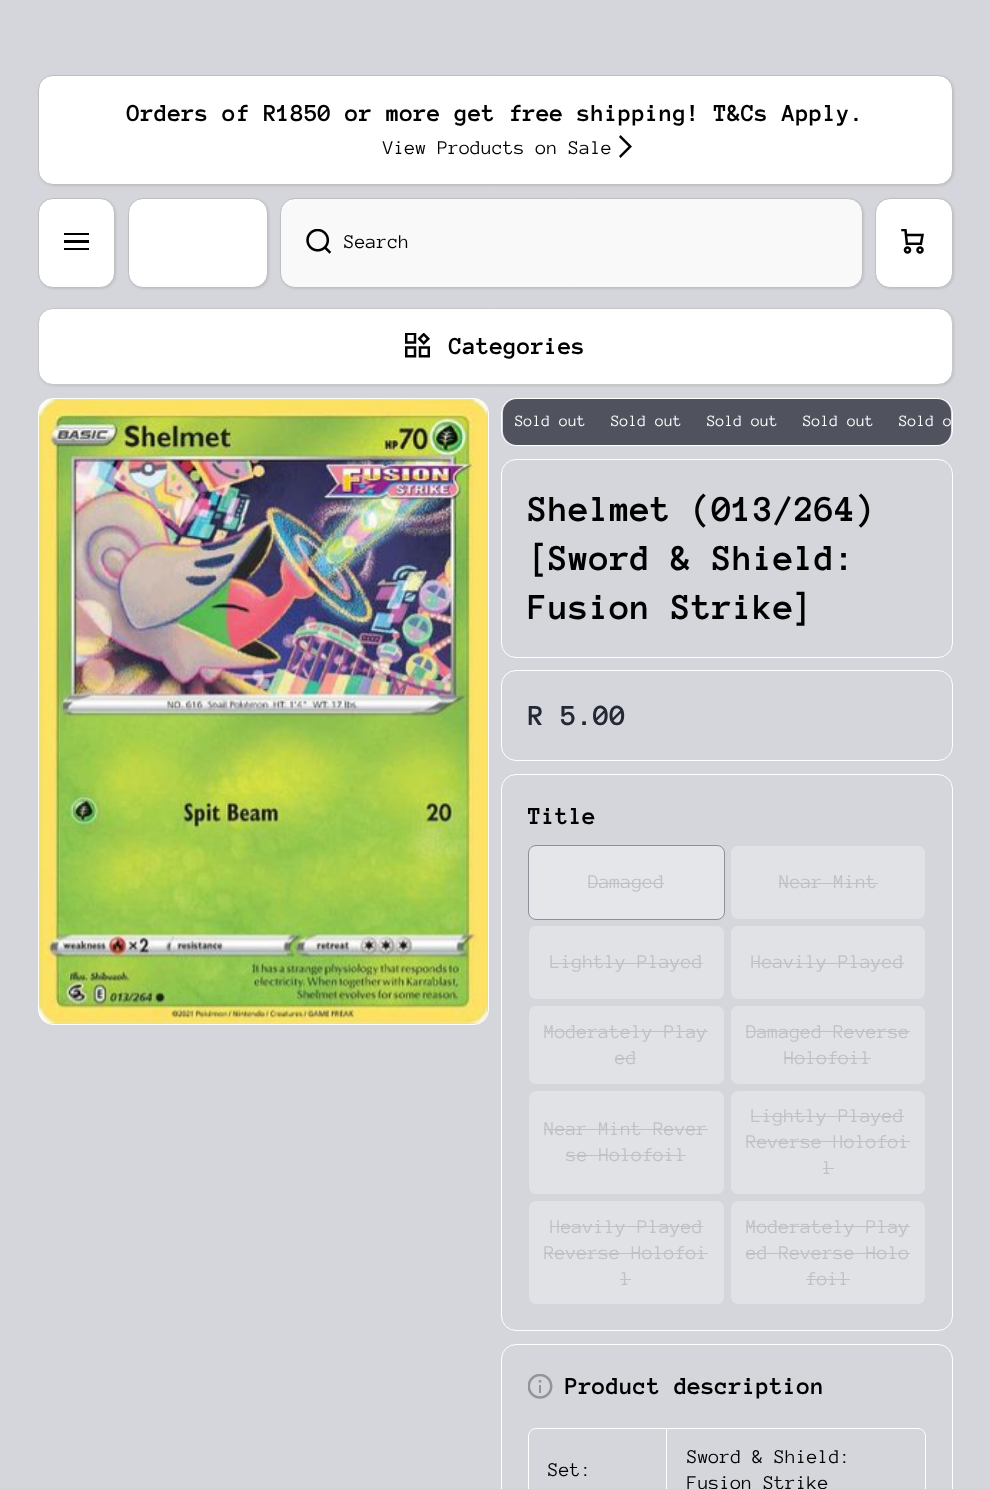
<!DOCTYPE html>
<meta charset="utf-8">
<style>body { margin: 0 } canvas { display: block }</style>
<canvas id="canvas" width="990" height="1489"></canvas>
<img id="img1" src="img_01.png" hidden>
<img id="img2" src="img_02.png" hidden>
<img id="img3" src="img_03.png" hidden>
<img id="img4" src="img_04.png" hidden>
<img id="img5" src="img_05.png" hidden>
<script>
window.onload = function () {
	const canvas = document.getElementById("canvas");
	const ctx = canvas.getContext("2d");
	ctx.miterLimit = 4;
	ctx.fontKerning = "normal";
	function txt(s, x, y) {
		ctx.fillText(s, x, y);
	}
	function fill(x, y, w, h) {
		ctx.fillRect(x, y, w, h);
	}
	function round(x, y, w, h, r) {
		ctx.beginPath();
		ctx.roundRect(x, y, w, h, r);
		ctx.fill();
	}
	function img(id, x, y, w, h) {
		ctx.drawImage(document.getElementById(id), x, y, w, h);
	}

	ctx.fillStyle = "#D4D6DB";
	fill(0, 0, 990, 1489);
	ctx.fillStyle = "rgba(0, 0, 0, 0.1)";
	ctx.filter = "blur(1px)";
	ctx.beginPath();
	ctx.roundRect(39, 76, 915, 110, 15);
	ctx.fill();
	ctx.filter = "none";
	ctx.fillStyle = "#FFFFFF";
	ctx.beginPath();
	ctx.roundRect(38.5, 75.5, 914, 109, 14.5);
	ctx.fill();
	ctx.strokeStyle = "#BFBFBF";
	ctx.stroke();
	ctx.fillStyle = "#000000";
	ctx.beginPath();
	ctx.moveTo(620.5, 135);
	ctx.lineTo(619, 137);
	ctx.lineTo(628.5, 146.5);
	ctx.lineTo(619, 156);
	ctx.lineTo(620.5, 158);
	ctx.lineTo(632, 146.5);
	ctx.closePath();
	ctx.fill("evenodd");
	ctx.fillStyle = "rgba(0, 0, 0, 0.1)";
	ctx.filter = "blur(1px)";
	ctx.beginPath();
	ctx.roundRect(39, 199, 77, 90, 15);
	ctx.fill();
	ctx.filter = "none";
	ctx.fillStyle = "#FFFFFF";
	ctx.beginPath();
	ctx.roundRect(38.5, 198.5, 76, 89, 14.5);
	ctx.fill();
	ctx.stroke();
	ctx.fillStyle = "#000000";
	fill(64, 233, 25, 2);
	fill(64, 240, 25, 3);
	fill(64, 248, 25, 2);
	ctx.fillStyle = "rgba(0, 0, 0, 0.1)";
	ctx.filter = "blur(1px)";
	ctx.beginPath();
	ctx.roundRect(129, 199, 140, 90, 15);
	ctx.fill();
	ctx.filter = "none";
	ctx.fillStyle = "#FFFFFF";
	ctx.beginPath();
	ctx.roundRect(128.5, 198.5, 139, 89, 14.5);
	ctx.fill();
	ctx.stroke();
	ctx.fillStyle = "rgba(0, 0, 0, 0.1)";
	ctx.filter = "blur(1px)";
	ctx.beginPath();
	ctx.roundRect(281, 199, 583, 90, 15);
	ctx.fill();
	ctx.filter = "none";
	ctx.fillStyle = "#F9F9F9";
	ctx.beginPath();
	ctx.roundRect(280.5, 198.5, 582, 89, 14.5);
	ctx.fill();
	ctx.stroke();
	img("img1", 306, 229, 25, 25);
	ctx.fillStyle = "rgba(0, 0, 0, 0.1)";
	ctx.filter = "blur(1px)";
	ctx.beginPath();
	ctx.roundRect(876, 199, 78, 90, 15);
	ctx.fill();
	ctx.filter = "none";
	ctx.fillStyle = "#FFFFFF";
	ctx.beginPath();
	ctx.roundRect(875.5, 198.5, 77, 89, 14.5);
	ctx.fill();
	ctx.stroke();
	img("img2", 901, 229, 23, 25);
	ctx.fillStyle = "rgba(0, 0, 0, 0.1)";
	ctx.filter = "blur(1px)";
	ctx.beginPath();
	ctx.roundRect(39, 309, 915, 77, 15);
	ctx.fill();
	ctx.filter = "none";
	ctx.fillStyle = "#FFFFFF";
	ctx.beginPath();
	ctx.roundRect(38.5, 308.5, 914, 76, 14.5);
	ctx.fill();
	ctx.strokeStyle = "#C7C7C7";
	ctx.stroke();
	img("img3", 405, 333, 25, 25);
	ctx.beginPath();
	ctx.roundRect(38.5, 398.5, 450, 626, 14.5);
	ctx.strokeStyle = "#FFFFFF";
	ctx.stroke();
	img("img4", 38, 398, 450, 626);
	ctx.beginPath();
	ctx.roundRect(501.5, 398.5, 451, 47, 14.5);
	ctx.stroke();
	ctx.fillStyle = "#50535D";
	round(503, 399, 448, 46, 14);
	ctx.beginPath();
	ctx.roundRect(501.5, 459.5, 451, 198, 14.5);
	ctx.stroke();
	ctx.beginPath();
	ctx.roundRect(501.5, 670.5, 451, 90, 14.5);
	ctx.stroke();
	ctx.beginPath();
	ctx.roundRect(501.5, 774.5, 451, 556, 14.5);
	ctx.stroke();
	ctx.fillStyle = "#E5E6E9";
	ctx.beginPath();
	ctx.roundRect(528.5, 845.5, 196, 74, 7.5);
	ctx.fill();
	ctx.strokeStyle = "#8E9099";
	ctx.stroke();
	ctx.fillStyle = "#BFC1C7";
	fill(588, 883, 76, 1);
	ctx.fillStyle = "#E0E2E6";
	ctx.beginPath();
	ctx.roundRect(730.5, 845.5, 195, 74, 7.5);
	ctx.fill();
	ctx.strokeStyle = "#D4D6DB";
	ctx.stroke();
	ctx.fillStyle = "#BFC1C7";
	fill(779, 883, 99, 1);
	ctx.fillStyle = "#E0E2E6";
	ctx.beginPath();
	ctx.roundRect(528.5, 925.5, 196, 74, 7.5);
	ctx.fill();
	ctx.stroke();
	ctx.fillStyle = "#BFC1C7";
	fill(550, 963, 153, 1);
	ctx.fillStyle = "#E0E2E6";
	ctx.beginPath();
	ctx.roundRect(730.5, 925.5, 195, 74, 7.5);
	ctx.fill();
	ctx.stroke();
	ctx.fillStyle = "#BFC1C7";
	fill(751, 963, 153, 1);
	ctx.fillStyle = "#E0E2E6";
	ctx.beginPath();
	ctx.roundRect(528.5, 1005.5, 196, 79, 7.5);
	ctx.fill();
	ctx.stroke();
	ctx.fillStyle = "#BFC1C7";
	fill(544, 1031, 164, 1);
	fill(615, 1058, 21, 1);
	ctx.fillStyle = "#E0E2E6";
	ctx.beginPath();
	ctx.roundRect(730.5, 1005.5, 195, 79, 7.5);
	ctx.fill();
	ctx.stroke();
	ctx.fillStyle = "#BFC1C7";
	fill(746, 1031, 164, 1);
	fill(784, 1058, 87, 1);
	ctx.fillStyle = "#E0E2E6";
	ctx.beginPath();
	ctx.roundRect(528.5, 1090.5, 196, 104, 7.5);
	ctx.fill();
	ctx.stroke();
	ctx.fillStyle = "#BFC1C7";
	fill(544, 1129, 164, 1);
	fill(566, 1155, 120, 1);
	ctx.fillStyle = "#E0E2E6";
	ctx.beginPath();
	ctx.roundRect(730.5, 1090.5, 195, 104, 7.5);
	ctx.fill();
	ctx.stroke();
	ctx.fillStyle = "#BFC1C7";
	fill(751, 1116, 153, 1);
	fill(746, 1141, 164, 1);
	fill(823, 1168, 11, 1);
	ctx.fillStyle = "#E0E2E6";
	ctx.beginPath();
	ctx.roundRect(528.5, 1200.5, 196, 104, 7.5);
	ctx.fill();
	ctx.stroke();
	ctx.fillStyle = "#BFC1C7";
	fill(550, 1226, 153, 1);
	fill(544, 1253, 164, 1);
	fill(620, 1279, 11, 1);
	ctx.fillStyle = "#E0E2E6";
	ctx.beginPath();
	ctx.roundRect(730.5, 1200.5, 195, 104, 7.5);
	ctx.fill();
	ctx.stroke();
	ctx.fillStyle = "#BFC1C7";
	fill(746, 1226, 164, 1);
	fill(746, 1253, 164, 1);
	fill(806, 1279, 44, 1);
	ctx.beginPath();
	ctx.roundRect(501.5, 1344.5, 451, 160, 14.5);
	ctx.strokeStyle = "#FFFFFF";
	ctx.stroke();
	img("img5", 528, 1374, 25, 25);
	ctx.beginPath();
	ctx.roundRect(528.5, 1428.5, 397, 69, 7.5);
	ctx.stroke();
	ctx.fillStyle = "#FFFFFF";
	fill(666, 1429, 1, 60);
	ctx.font = "bold 25px Anonymous Pro";
	ctx.fillStyle = "#000000";
	txt("Orders of R1850 or more get free shipping! T&Cs Apply.", 127, 121);
	ctx.font = "20px Anonymous Pro";
	txt("View Products on Sale", 383, 154);
	txt("Search", 344, 248);
	ctx.font = "bold 25px Anonymous Pro";
	txt("Categories", 449, 354);
	ctx.font = "16.25px Anonymous Pro";
	ctx.fillStyle = "#FFFFFF";
	txt("Sold out", 515, 426);
	txt("Sold out", 611, 426);
	txt("Sold out", 707, 426);
	txt("Sold out", 803, 426);
	txt("Sold o", 899, 426);
	ctx.font = "bold 37.5px Anonymous Pro";
	ctx.fillStyle = "#000000";
	txt("Shelmet (013/264)", 528, 521);
	txt("[Sword & Shield:", 528, 570);
	txt("Fusion Strike]", 528, 619);
	ctx.font = "bold 30px Anonymous Pro";
	ctx.fillStyle = "#242835";
	txt("R 5.00", 528, 725);
	ctx.font = "bold 25px Anonymous Pro";
	ctx.fillStyle = "#000000";
	txt("Title", 528, 824);
	ctx.font = "20px Anonymous Pro";
	ctx.fillStyle = "#BFC1C7";
	txt("Damaged", 588, 888);
	txt("Near Mint", 779, 888);
	txt("Lightly Played", 550, 968);
	txt("Heavily Played", 751, 968);
	txt("Moderately Play", 544, 1038);
	txt("ed", 615, 1064);
	txt("Damaged Reverse", 746, 1038);
	txt("Holofoil", 784, 1064);
	txt("Near Mint Rever", 544, 1135);
	txt("se Holofoil", 566, 1161);
	txt("Lightly Played", 751, 1122);
	txt("Reverse Holofoi", 746, 1148);
	txt("l", 822, 1174);
	txt("Heavily Played", 550, 1233);
	txt("Reverse Holofoi", 544, 1259);
	txt("l", 620, 1285);
	txt("Moderately Play", 746, 1233);
	txt("ed Reverse Holo", 746, 1259);
	txt("foil", 806, 1285);
	ctx.font = "bold 25px Anonymous Pro";
	ctx.fillStyle = "#000000";
	txt("Product description", 565, 1394);
	ctx.font = "20px Anonymous Pro";
	txt("Set:", 548, 1476);
	txt("Sword & Shield:", 687, 1463);
	txt("Fusion Strike", 687, 1489);
};
</script>
